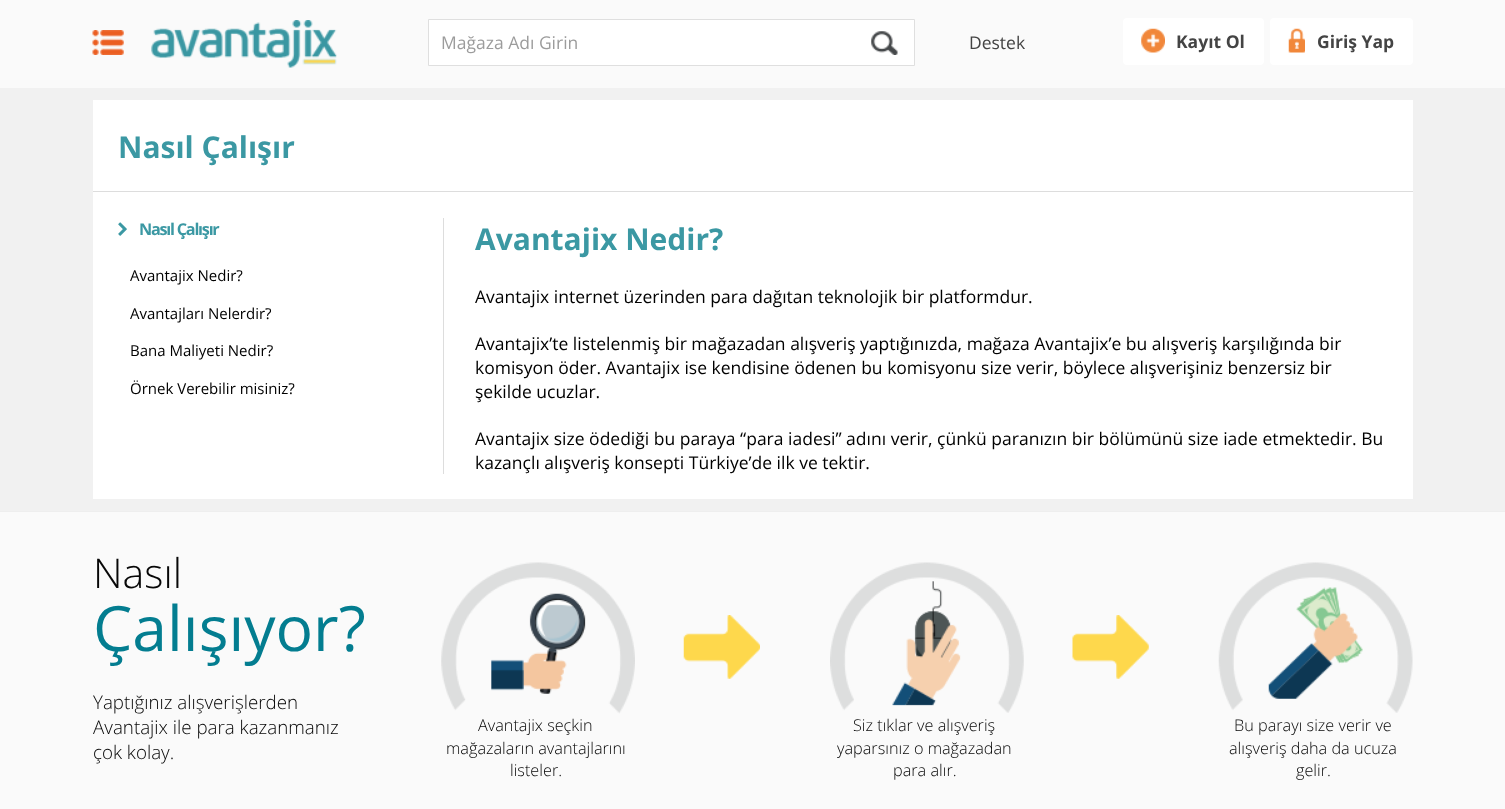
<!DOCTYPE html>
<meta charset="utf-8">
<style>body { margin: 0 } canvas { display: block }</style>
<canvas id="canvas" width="1505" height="809"></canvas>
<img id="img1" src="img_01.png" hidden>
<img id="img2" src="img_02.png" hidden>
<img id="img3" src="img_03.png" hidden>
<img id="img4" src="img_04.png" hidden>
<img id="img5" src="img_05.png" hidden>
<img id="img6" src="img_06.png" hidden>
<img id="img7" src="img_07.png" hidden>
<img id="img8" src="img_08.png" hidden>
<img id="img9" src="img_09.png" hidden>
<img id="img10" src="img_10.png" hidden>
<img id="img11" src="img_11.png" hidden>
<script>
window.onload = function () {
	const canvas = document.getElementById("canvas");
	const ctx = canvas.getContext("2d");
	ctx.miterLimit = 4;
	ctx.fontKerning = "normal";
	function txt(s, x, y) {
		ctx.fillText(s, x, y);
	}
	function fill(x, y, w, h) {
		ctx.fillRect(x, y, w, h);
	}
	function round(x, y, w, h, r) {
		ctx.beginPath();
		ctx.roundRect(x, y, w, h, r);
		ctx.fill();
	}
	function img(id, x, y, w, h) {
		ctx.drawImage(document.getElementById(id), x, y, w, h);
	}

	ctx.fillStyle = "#F1F1F1";
	fill(0, 0, 1505, 809);
	ctx.fillStyle = "#FAFAFA";
	fill(0, 0, 1505, 88);
	img("img1", 92, 30, 32, 25);
	img("img2", 151, 20, 186, 48);
	ctx.fillStyle = "#FFFFFF";
	ctx.beginPath();
	ctx.rect(428.5, 19.5, 486, 46);
	ctx.fill();
	ctx.strokeStyle = "#DFDFDF";
	ctx.stroke();
	img("img3", 871, 31, 27, 24);
	round(1123, 18, 141, 47, 4);
	img("img4", 1141, 28, 24, 25);
	round(1270, 18, 143, 47, 4);
	img("img5", 1288, 28, 17, 25);
	fill(93, 100, 1320, 399);
	ctx.fillStyle = "#DDDDDD";
	fill(93, 191, 1320, 1);
	img("img6", 118, 222, 9, 14);
	fill(443, 218, 1, 256);
	ctx.fillStyle = "#FAFAFA";
	fill(0, 512, 1505, 297);
	ctx.fillStyle = "#EEEEEE";
	fill(0, 511, 1505, 1);
	img("img7", 683, 615, 77, 64);
	img("img8", 441, 562, 194, 152);
	img("img9", 1072, 615, 77, 64);
	img("img10", 830, 562, 194, 151);
	img("img11", 1218, 562, 195, 151);
	ctx.font = "17.5px Open Sans";
	ctx.fillStyle = "#9C9C9C";
	txt("Mağaza Adı Girin", 441, 49);
	ctx.fillStyle = "#444444";
	txt("Destek", 969, 49);
	ctx.font = "bold 17.5px Open Sans";
	txt("Kayıt Ol", 1176, 48);
	txt("Giriş Yap", 1317, 48);
	ctx.font = "bold 30px Open Sans";
	ctx.fillStyle = "#3B98A3";
	txt("Nasıl Çalışır", 118, 158);
	ctx.letterSpacing = "-1.25px";
	ctx.font = "bold 16.25px Open Sans";
	txt("Nasıl Çalışır", 139, 235);
	ctx.letterSpacing = "0px";
	ctx.font = "15px Open Sans";
	ctx.fillStyle = "#000000";
	txt("Avantajix Nedir?", 130, 281);
	txt("Avantajları Nelerdir?", 130, 319);
	txt("Bana Maliyeti Nedir?", 130, 356);
	txt("Örnek Verebilir misiniz?", 130, 394);
	ctx.font = "bold 30px Open Sans";
	ctx.fillStyle = "#3B98A3";
	txt("Avantajix Nedir?", 475, 250);
	ctx.font = "17.5px Open Sans";
	ctx.fillStyle = "#000000";
	txt("Avantajix internet üzerinden para dağıtan teknolojik bir platformdur.", 475, 303);
	txt("Avantajix’te listelenmiş bir mağazadan alışveriş yaptığınızda, mağaza Avantajix’e bu alışveriş karşılığında bir", 475, 350);
	txt("komisyon öder. Avantajix ise kendisine ödenen bu komisyonu size verir, böylece alışverişiniz benzersiz bir", 475, 374);
	txt("şekilde ucuzlar.", 475, 398);
	txt("Avantajix size ödediği bu paraya “para iadesi” adını verir, çünkü paranızın bir bölümünü size iade etmektedir. Bu", 475, 445);
	txt("kazançlı alışveriş konsepti Türkiye’de ilk ve tektir.", 475, 469);
	ctx.font = "300 41px Open Sans";
	ctx.fillStyle = "#070707";
	txt("Nasıl", 93, 588);
	ctx.font = "62.5px Open Sans";
	ctx.fillStyle = "#037D90";
	txt("Çalışıyor?", 93, 651);
	ctx.font = "300 18.75px Open Sans";
	ctx.fillStyle = "#070707";
	txt("Yaptığınız alışverişlerden", 93, 709);
	txt("Avantajix ile para kazanmanız", 93, 734);
	txt("çok kolay.", 93, 759);
	ctx.font = "300 16.25px Open Sans";
	txt("Avantajix seçkin", 478, 731);
	txt("mağazaların avantajlarını", 446, 754);
	txt("listeler.", 510, 776);
	txt("Siz tıklar ve alışveriş", 853, 731);
	txt("yaparsınız o mağazadan", 837, 754);
	txt("para alır.", 893, 776);
	txt("Bu parayı size verir ve", 1234, 731);
	txt("alışveriş daha da ucuza", 1229, 754);
	txt("gelir.", 1296, 776);
};
</script>
